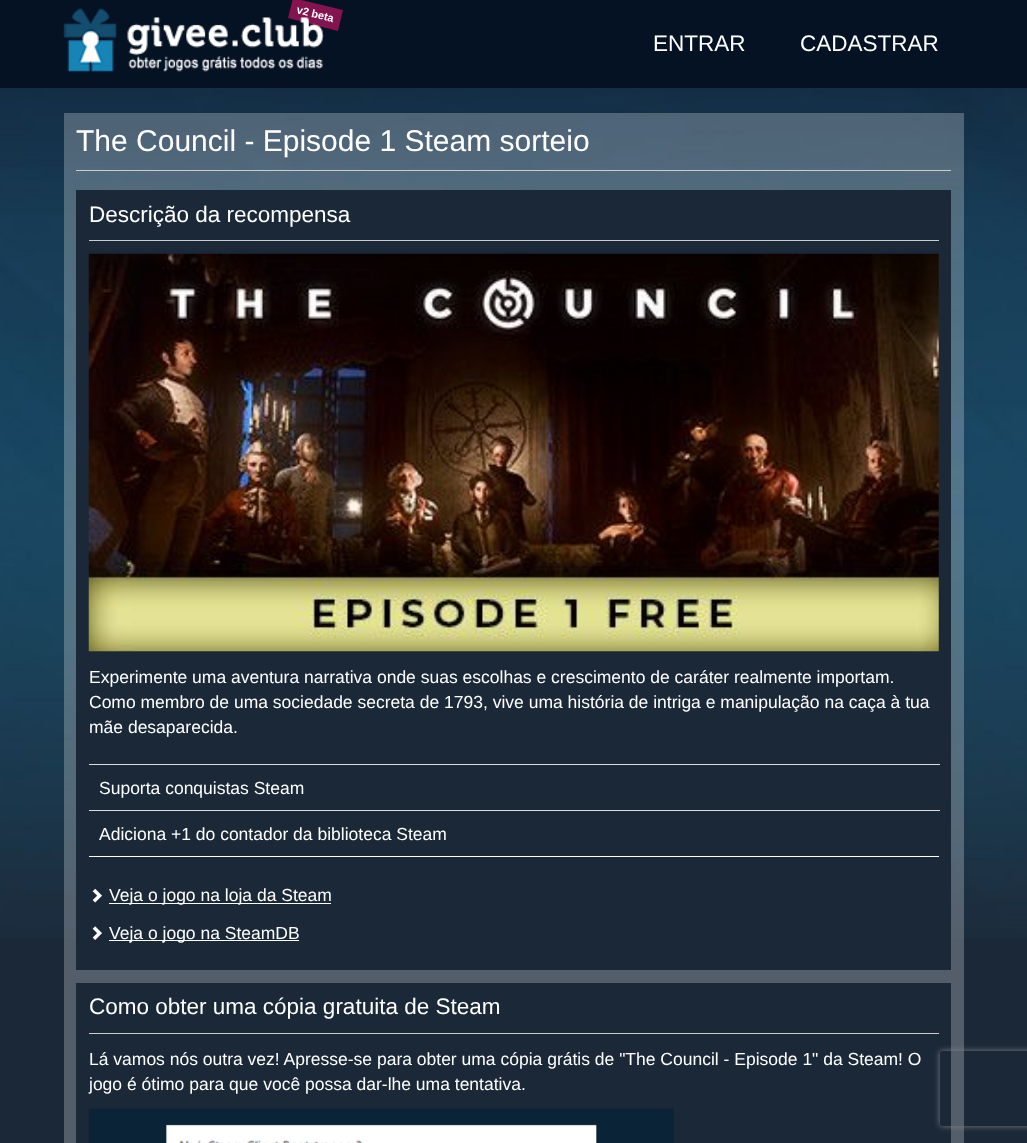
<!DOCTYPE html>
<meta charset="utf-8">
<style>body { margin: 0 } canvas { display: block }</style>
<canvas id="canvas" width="1027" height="1143"></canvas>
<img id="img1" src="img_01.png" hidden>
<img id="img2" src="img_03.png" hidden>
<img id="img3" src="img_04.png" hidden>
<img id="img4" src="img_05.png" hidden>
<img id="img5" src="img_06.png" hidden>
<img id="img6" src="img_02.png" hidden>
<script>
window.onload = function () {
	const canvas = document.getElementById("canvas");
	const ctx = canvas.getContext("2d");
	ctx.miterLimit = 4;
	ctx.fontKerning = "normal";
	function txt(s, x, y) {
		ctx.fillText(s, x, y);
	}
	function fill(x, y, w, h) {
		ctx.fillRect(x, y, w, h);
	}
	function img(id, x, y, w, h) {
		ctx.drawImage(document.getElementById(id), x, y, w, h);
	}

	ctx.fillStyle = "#1B2838";
	fill(0, 0, 1027, 1143);
	img("img1", 0, 88, 1027, 851);
	ctx.fillStyle = "#051224";
	fill(0, 0, 1027, 88);
	ctx.fillStyle = "#84144F";
	ctx.beginPath();
	ctx.moveTo(293, -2);
	ctx.lineTo(343, 10);
	ctx.lineTo(338, 31);
	ctx.lineTo(288, 18);
	ctx.closePath();
	ctx.fill();
	ctx.fillStyle = "rgba(255, 255, 255, 0.25)";
	fill(64, 113, 900, 1030);
	ctx.fillStyle = "#CCCCCC";
	fill(76, 170, 875, 1);
	ctx.fillStyle = "#1B2838";
	fill(76, 190, 875, 780);
	ctx.fillStyle = "#CCCCCC";
	fill(89, 240, 850, 1);
	img("img2", 88, 253, 851, 399);
	ctx.fillStyle = "#FFFFFF";
	fill(89, 856, 850, 1);
	ctx.fillStyle = "#DDDDDD";
	fill(89, 764, 851, 1);
	fill(89, 810, 851, 1);
	img("img3", 92, 888, 10, 15);
	ctx.fillStyle = "#FFFFFF";
	fill(109, 903, 222, 1);
	img("img4", 92, 926, 10, 14);
	fill(109, 940, 190, 1);
	ctx.fillStyle = "#1B2838";
	fill(76, 983, 875, 160);
	ctx.fillStyle = "#CCCCCC";
	fill(89, 1033, 850, 1);
	img("img5", 88, 1108, 586, 35);
	ctx.save();
	ctx.beginPath();
	ctx.moveTo(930, 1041);
	ctx.lineTo(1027, 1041);
	ctx.lineTo(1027, 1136);
	ctx.lineTo(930, 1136);
	ctx.closePath();
	ctx.moveTo(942.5, 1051);
	ctx.lineTo(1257.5, 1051);
	ctx.bezierCurveTo(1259, 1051, 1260, 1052, 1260, 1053.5);
	ctx.lineTo(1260, 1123.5);
	ctx.bezierCurveTo(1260, 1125, 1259, 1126, 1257.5, 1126);
	ctx.lineTo(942.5, 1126);
	ctx.bezierCurveTo(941, 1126, 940, 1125, 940, 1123.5);
	ctx.lineTo(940, 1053.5);
	ctx.bezierCurveTo(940, 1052, 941, 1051, 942.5, 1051);
	ctx.closePath();
	ctx.clip("evenodd");
	ctx.fillStyle = "#808080";
	ctx.filter = "blur(3px)";
	ctx.beginPath();
	ctx.roundRect(940, 1051, 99, 75, 2.5);
	ctx.fill();
	ctx.filter = "none";
	ctx.restore();
	ctx.font = "bold 11px Liberation Sans";
	ctx.fillStyle = "#FFFFFF";
	ctx.save();
	ctx.translate(296, 13);
	ctx.rotate(14 * Math.PI / 180);
	ctx.fillText("v2 beta", 0, 0);
	ctx.restore();
	img("img6", 63, 8, 261, 64);
	ctx.font = "22.5px Liberation Sans";
	txt("ENTRAR", 653, 51);
	txt("CADASTRAR", 800, 51);
	ctx.font = "30px Liberation Sans";
	txt("The Council - Episode 1 Steam sorteio", 76, 151);
	ctx.font = "22.5px Liberation Sans";
	txt("Descrição da recompensa", 89, 222);
	ctx.font = "17.5px Liberation Sans";
	txt("Experimente uma aventura narrativa onde suas escolhas e crescimento de caráter realmente importam.", 89, 683);
	txt("Como membro de uma sociedade secreta de 1793, vive uma história de intriga e manipulação na caça à tua", 89, 708);
	txt("mãe desaparecida.", 89, 733);
	txt("Suporta conquistas Steam", 99, 794);
	txt("Adiciona +1 do contador da biblioteca Steam", 99, 840);
	txt("Veja o jogo na loja da Steam", 109, 901);
	txt("Veja o jogo na SteamDB", 109, 939);
	ctx.font = "22.5px Liberation Sans";
	txt("Como obter uma cópia gratuita de Steam", 89, 1014);
	ctx.font = "17.5px Liberation Sans";
	txt("Lá vamos nós outra vez! Apresse-se para obter uma cópia grátis de \"The Council - Episode 1\" da Steam! O", 89, 1065);
	txt("jogo é ótimo para que você possa dar-lhe uma tentativa.", 89, 1090);
};
</script>
